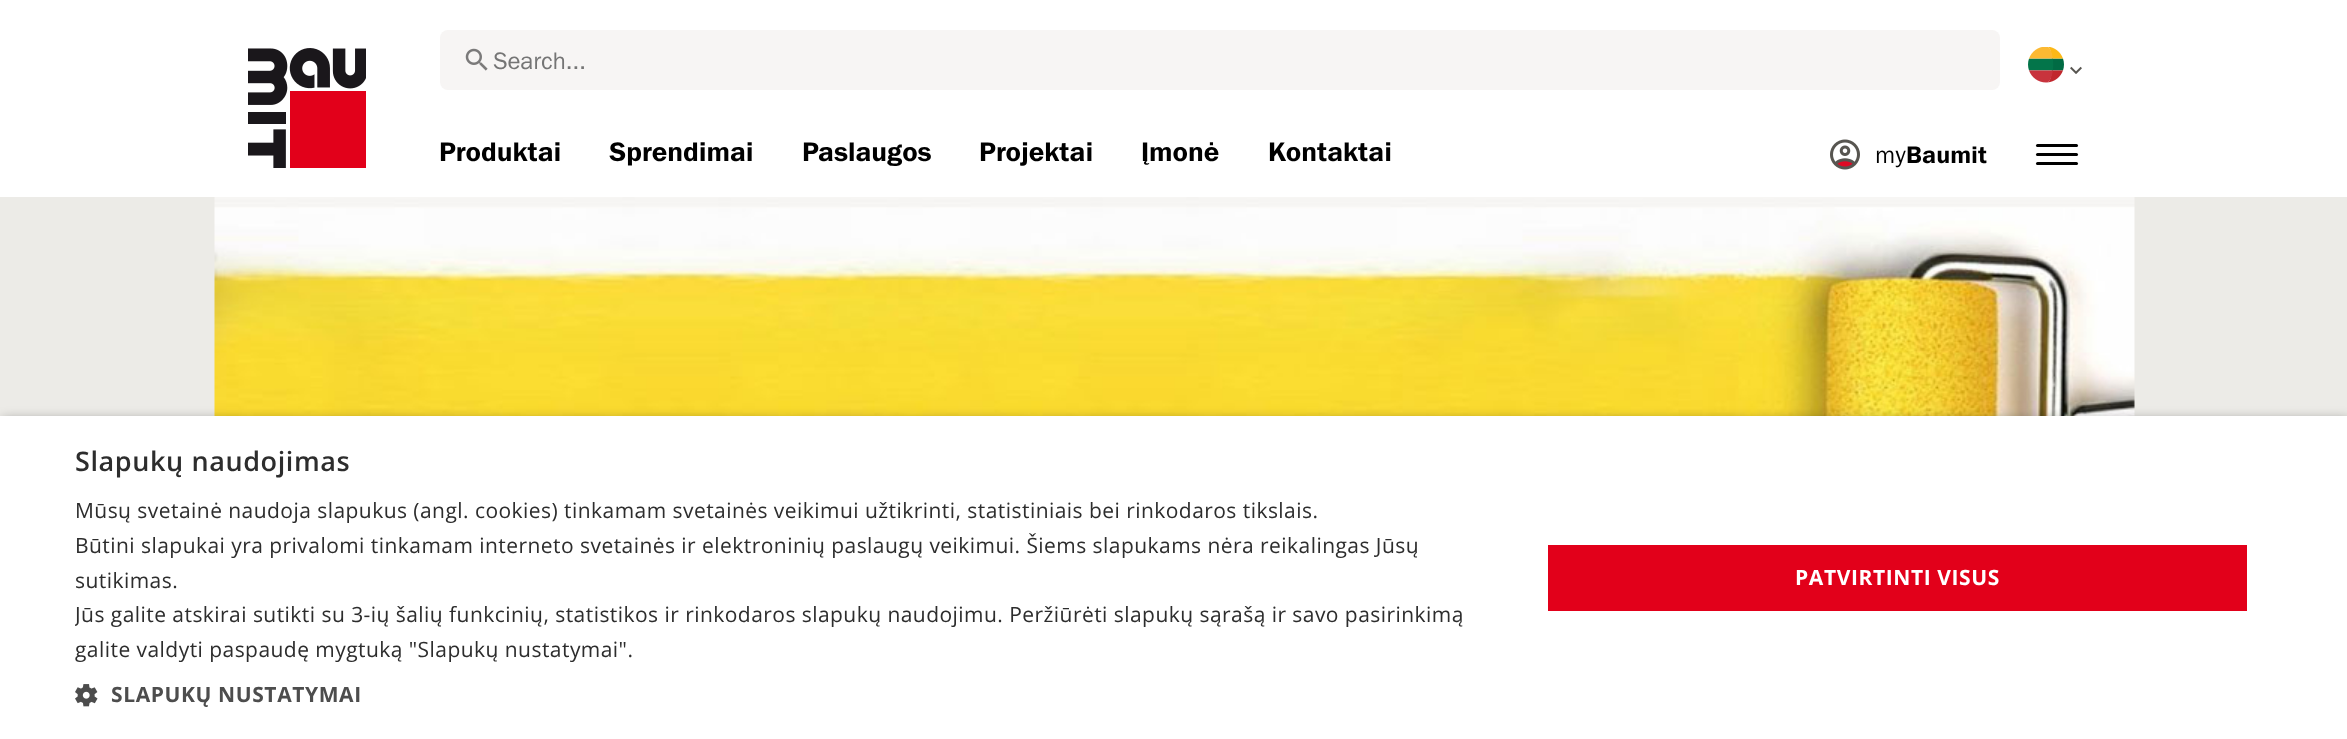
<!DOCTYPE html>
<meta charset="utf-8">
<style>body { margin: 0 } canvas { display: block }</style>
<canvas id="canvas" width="2347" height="739"></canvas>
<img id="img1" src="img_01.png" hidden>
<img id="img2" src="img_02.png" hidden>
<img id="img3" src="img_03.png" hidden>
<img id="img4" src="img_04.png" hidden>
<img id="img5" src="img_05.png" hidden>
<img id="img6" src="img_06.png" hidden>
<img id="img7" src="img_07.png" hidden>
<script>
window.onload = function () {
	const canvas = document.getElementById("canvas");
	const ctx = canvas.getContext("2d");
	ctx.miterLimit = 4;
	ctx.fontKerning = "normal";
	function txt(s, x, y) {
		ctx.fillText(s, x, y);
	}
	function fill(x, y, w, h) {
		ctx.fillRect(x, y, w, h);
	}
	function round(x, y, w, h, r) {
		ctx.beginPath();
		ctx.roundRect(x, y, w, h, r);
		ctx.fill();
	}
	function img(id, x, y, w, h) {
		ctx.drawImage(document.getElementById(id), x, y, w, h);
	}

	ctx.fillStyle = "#ECEBE7";
	fill(0, 0, 2347, 739);
	ctx.fillStyle = "#FFFFFF";
	fill(0, 0, 2347, 197);
	img("img1", 248, 48, 118, 120);
	ctx.fillStyle = "#F7F5F4";
	round(440, 30, 1560, 60, 8);
	img("img2", 465, 48, 23, 23);
	img("img3", 2028, 47, 36, 36);
	img("img4", 2070, 66, 12, 8);
	img("img5", 1830, 139, 30, 31);
	ctx.fillStyle = "#000000";
	round(2036, 144, 42, 3, 1.5);
	round(2036, 153, 42, 3, 1.5);
	round(2036, 162, 42, 3, 1.5);
	img("img6", 214, 197, 1921, 219);
	ctx.fillStyle = "rgba(0, 0, 0, 0.35)";
	ctx.filter = "blur(6px)";
	ctx.beginPath();
	ctx.rect(2, 419, 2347, 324);
	ctx.fill();
	ctx.filter = "none";
	ctx.fillStyle = "#FFFFFF";
	fill(0, 416, 2347, 323);
	img("img7", 75, 684, 23, 23);
	ctx.fillStyle = "#E2001A";
	fill(1548, 545, 699, 66);
	ctx.font = "24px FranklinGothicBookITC";
	ctx.fillStyle = "#757575";
	txt("Search...", 493, 69);
	ctx.font = "27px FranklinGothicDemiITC";
	ctx.fillStyle = "#000000";
	txt("Produktai", 439, 161);
	txt("Sprendimai", 609, 161);
	txt("Paslaugos", 802, 161);
	txt("Projektai", 979, 161);
	txt("Įmonė", 1141, 161);
	txt("Kontaktai", 1268, 161);
	ctx.font = "24px FranklinGothicBookITC";
	txt("my", 1875, 163);
	ctx.font = "24px FranklinGothicDemiITC";
	txt("Baumit", 1906, 163);
	ctx.letterSpacing = "0.6px";
	ctx.font = "600 27px Open Sans";
	ctx.fillStyle = "#2D2D2D";
	txt("Slapukų naudojimas", 75, 471);
	ctx.letterSpacing = "0.45px";
	ctx.font = "21px Open Sans";
	txt("Mūsų svetainė naudoja slapukus (angl. cookies) tinkamam svetainės veikimui užtikrinti, statistiniais bei rinkodaros tikslais.", 75, 518);
	txt("Būtini slapukai yra privalomi tinkamam interneto svetainės ir elektroninių paslaugų veikimui. Šiems slapukams nėra reikalingas Jūsų", 75, 553);
	txt("sutikimas.", 75, 588);
	ctx.save();
	ctx.beginPath();
	ctx.rect(75, 494, 1419, 172);
	ctx.clip();
	txt("Jūs galite atskirai sutikti su 3-ių šalių funkcinių, statistikos ir rinkodaros slapukų naudojimu. Peržiūrėti slapukų sąrašą ir savo pasirinkimą", 75, 622);
	ctx.restore();
	txt("galite valdyti paspaudę mygtuką \"Slapukų nustatymai\".", 75, 657);
	ctx.letterSpacing = "0.6px";
	ctx.font = "bold 21px Open Sans";
	ctx.fillStyle = "#4D4D4D";
	txt("SLAPUKŲ NUSTATYMAI", 111, 702);
	ctx.fillStyle = "#FFFFFF";
	txt("PATVIRTINTI VISUS", 1795, 585);
};
</script>
